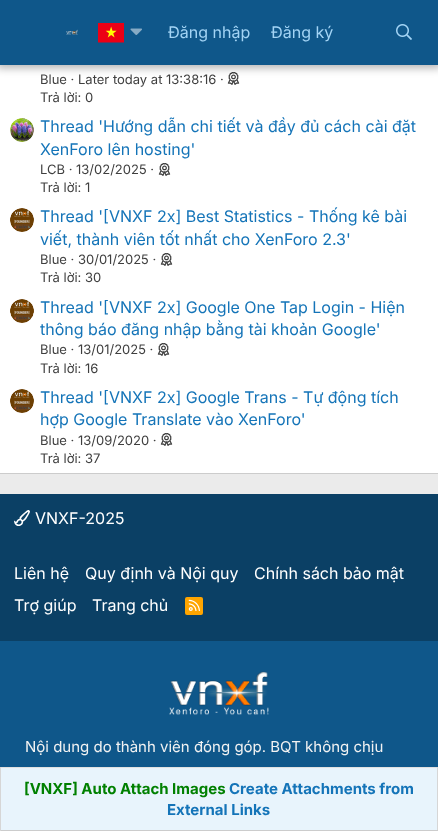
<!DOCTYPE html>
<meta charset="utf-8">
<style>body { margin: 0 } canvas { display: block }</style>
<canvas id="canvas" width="438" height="831"></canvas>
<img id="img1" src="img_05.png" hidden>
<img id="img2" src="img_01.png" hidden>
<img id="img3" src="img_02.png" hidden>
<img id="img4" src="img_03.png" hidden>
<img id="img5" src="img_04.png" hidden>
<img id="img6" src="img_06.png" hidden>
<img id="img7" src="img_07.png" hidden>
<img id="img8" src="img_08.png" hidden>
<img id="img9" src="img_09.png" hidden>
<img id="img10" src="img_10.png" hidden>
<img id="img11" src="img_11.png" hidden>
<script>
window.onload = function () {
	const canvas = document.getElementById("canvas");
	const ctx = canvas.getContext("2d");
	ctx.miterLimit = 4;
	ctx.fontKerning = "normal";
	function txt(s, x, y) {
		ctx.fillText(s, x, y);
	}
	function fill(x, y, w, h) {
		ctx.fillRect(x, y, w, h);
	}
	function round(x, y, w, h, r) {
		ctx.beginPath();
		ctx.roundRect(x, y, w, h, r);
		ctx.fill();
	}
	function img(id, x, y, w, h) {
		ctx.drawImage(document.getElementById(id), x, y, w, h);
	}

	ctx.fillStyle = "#EBEBEB";
	fill(0, 0, 438, 831);
	ctx.fillStyle = "#FFFFFF";
	fill(0, 65, 438, 408);
	img("img1", 227, 72, 13, 13);
	ctx.fillStyle = "rgba(0, 0, 0, 0.3)";
	ctx.filter = "blur(4px)";
	ctx.beginPath();
	ctx.rect(-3, -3, 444, 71);
	ctx.fill();
	ctx.filter = "none";
	ctx.fillStyle = "#0F578A";
	fill(0, 0, 438, 65);
	img("img2", 66, 29, 12, 6);
	img("img3", 98, 23, 26, 20);
	img("img4", 130, 28, 12, 7);
	img("img5", 396, 24, 16, 16);
	ctx.fillStyle = "#CCCCCC";
	fill(0, 473, 438, 1);
	img("img6", 10, 118, 24, 24);
	img("img1", 158, 163, 13, 13);
	img("img7", 10, 208, 24, 24);
	img("img1", 160, 253, 13, 13);
	img("img8", 10, 299, 24, 24);
	img("img1", 157, 343, 13, 13);
	img("img7", 10, 389, 24, 24);
	img("img1", 160, 433, 13, 13);
	ctx.fillStyle = "#0B4065";
	fill(0, 494, 438, 147);
	img("img9", 14, 510, 16, 16);
	ctx.fillStyle = "#FFA500";
	round(185, 597, 18, 18, 2);
	img("img10", 188, 599, 12, 12);
	ctx.fillStyle = "#0F578A";
	fill(0, 641, 438, 126);
	img("img11", 169, 671, 100, 44);
	ctx.fillStyle = "#E8F4FC";
	fill(1, 768, 436, 62);
	ctx.fillStyle = "#E0E0E0";
	fill(0, 767, 438, 1);
	ctx.fillStyle = "#D6D6D6";
	fill(437, 767, 1, 64);
	ctx.fillStyle = "#CCCCCC";
	fill(0, 830, 438, 1);
	ctx.fillStyle = "#D6D6D6";
	fill(0, 767, 1, 64);
	ctx.font = "16px Inter";
	ctx.fillStyle = "#A3D4F5";
	txt("Đăng nhập", 168, 38);
	txt("Đăng ký", 271, 38);
	ctx.font = "13px Inter";
	ctx.fillStyle = "#3F3F3F";
	txt("Blue · Later today at 13:38:16 ·", 40, 84);
	txt("Trả lời: 0", 40, 102);
	ctx.font = "16px Inter";
	ctx.fillStyle = "#1474B8";
	txt("Thread 'Hướng dẫn chi tiết và đầy đủ cách cài đặt", 40, 132);
	txt("XenForo lên hosting'", 40, 155);
	ctx.font = "13px Inter";
	ctx.fillStyle = "#3F3F3F";
	txt("LCB · 13/02/2025 ·", 40, 174);
	txt("Trả lời: 1", 40, 192);
	ctx.font = "16px Inter";
	ctx.fillStyle = "#1474B8";
	txt("Thread '[VNXF 2x] Best Statistics - Thống kê bài", 40, 222);
	txt("viết, thành viên tốt nhất cho XenForo 2.3'", 40, 245);
	ctx.font = "13px Inter";
	ctx.fillStyle = "#3F3F3F";
	txt("Blue · 30/01/2025 ·", 40, 264);
	txt("Trả lời: 30", 40, 282);
	ctx.font = "16px Inter";
	ctx.fillStyle = "#1474B8";
	txt("Thread '[VNXF 2x] Google One Tap Login - Hiện", 40, 313);
	txt("thông báo đăng nhập bằng tài khoản Google'", 40, 335);
	ctx.font = "13px Inter";
	ctx.fillStyle = "#3F3F3F";
	txt("Blue · 13/01/2025 ·", 40, 354);
	txt("Trả lời: 16", 40, 373);
	ctx.font = "16px Inter";
	ctx.fillStyle = "#1474B8";
	txt("Thread '[VNXF 2x] Google Trans - Tự động tích", 40, 403);
	txt("hợp Google Translate vào XenForo'", 40, 425);
	ctx.font = "13px Inter";
	ctx.fillStyle = "#3F3F3F";
	txt("Blue · 13/09/2020 ·", 40, 445);
	txt("Trả lời: 37", 40, 463);
	ctx.font = "16px Inter";
	ctx.fillStyle = "#FFFFFF";
	txt("VNXF-2025", 35, 524);
	txt("Liên hệ", 14, 579);
	txt("Quy định và Nội quy", 85, 579);
	txt("Chính sách bảo mật", 254, 579);
	txt("Trợ giúp", 14, 611);
	txt("Trang chủ", 92, 611);
	ctx.font = "15px Inter";
	ctx.fillStyle = "#F2F2F2";
	txt("Nội dung do thành viên đóng góp. BQT không chịu", 25, 752);
	ctx.font = "bold 15px Inter";
	ctx.fillStyle = "#008000";
	txt("[VNXF] Auto Attach Images", 24, 794);
	ctx.fillStyle = "#1474B8";
	txt("Create Attachments from", 229, 794);
	txt("External Links", 167, 815);
};
</script>
